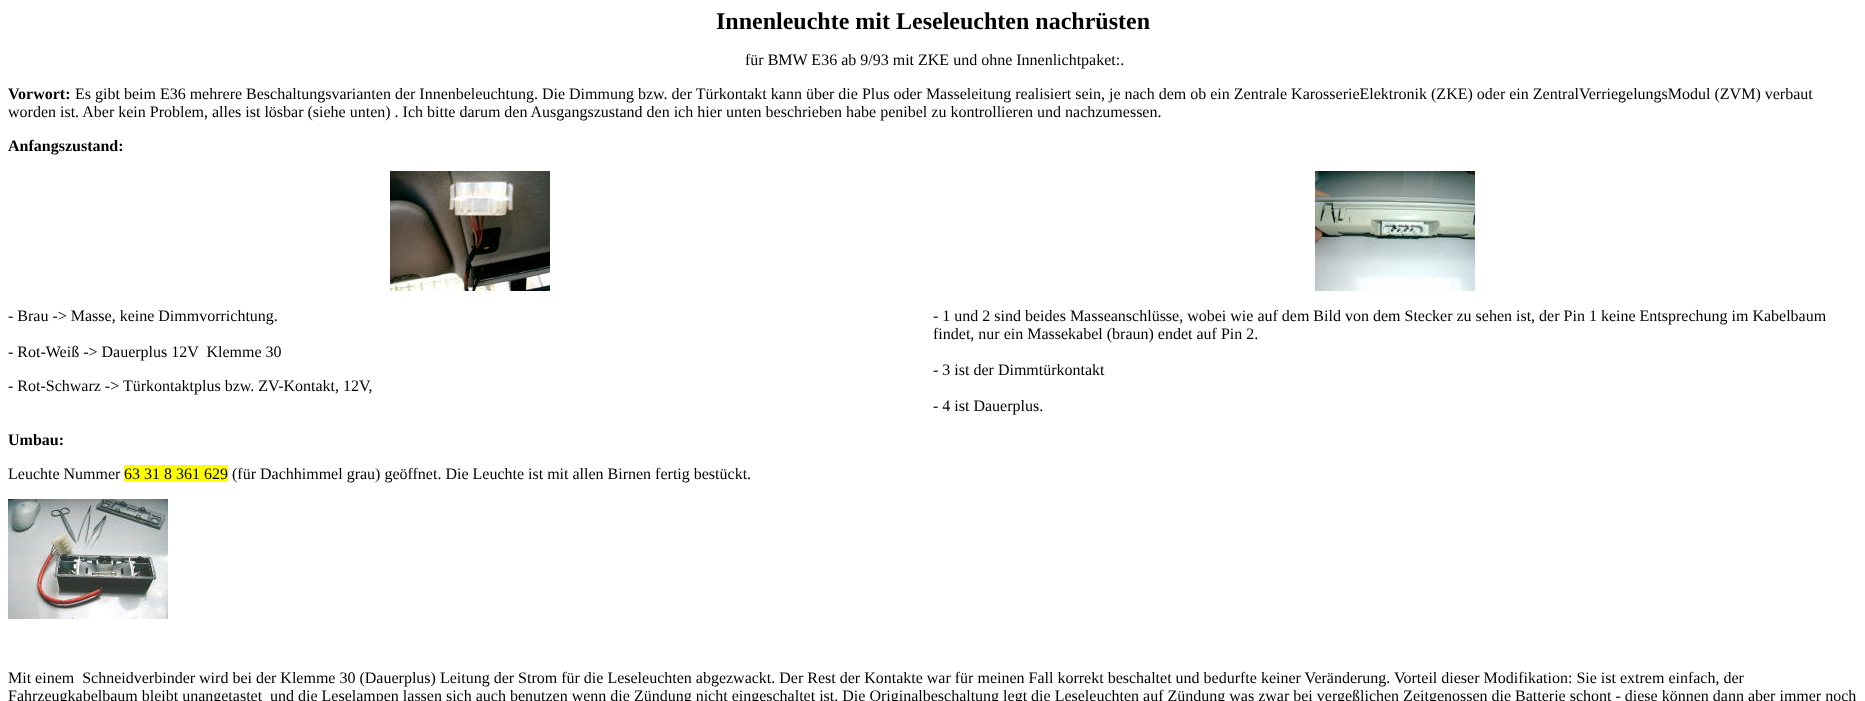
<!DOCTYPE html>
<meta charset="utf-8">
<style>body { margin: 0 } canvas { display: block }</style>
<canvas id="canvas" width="1865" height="701"></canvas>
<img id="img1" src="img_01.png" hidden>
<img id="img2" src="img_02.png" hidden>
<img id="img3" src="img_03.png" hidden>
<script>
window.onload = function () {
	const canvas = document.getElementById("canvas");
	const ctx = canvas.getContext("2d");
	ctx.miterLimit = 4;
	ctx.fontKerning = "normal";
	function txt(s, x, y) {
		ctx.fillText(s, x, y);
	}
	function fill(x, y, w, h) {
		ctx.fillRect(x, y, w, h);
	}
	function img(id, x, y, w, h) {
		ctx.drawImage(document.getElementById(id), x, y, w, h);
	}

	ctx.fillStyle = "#FFFFFF";
	fill(0, 0, 1865, 701);
	img("img1", 390, 171, 160, 120);
	img("img2", 1315, 171, 160, 120);
	ctx.fillStyle = "#FFFF00";
	fill(124, 465, 104, 17);
	img("img3", 8, 499, 160, 120);
	ctx.font = "bold 24px Liberation Serif";
	ctx.fillStyle = "#000000";
	txt("Innenleuchte mit Leseleuchten nachrüsten", 716, 29);
	ctx.font = "16px Liberation Serif";
	txt("für BMW E36 ab 9/93 mit ZKE und ohne Innenlichtpaket:.", 745, 65);
	ctx.font = "bold 16px Liberation Serif";
	txt("Vorwort:", 8, 99);
	ctx.font = "16px Liberation Serif";
	txt("Es gibt beim E36 mehrere Beschaltungsvarianten der Innenbeleuchtung. Die Dimmung bzw. der Türkontakt kann über die Plus oder Masseleitung realisiert sein, je nach dem ob ein Zentrale KarosserieElektronik (ZKE) oder ein ZentralVerriegelungsModul (ZVM) verbaut", 75, 99);
	txt("worden ist. Aber kein Problem, alles ist lösbar (siehe unten) . Ich bitte darum den Ausgangszustand den ich hier unten beschrieben habe penibel zu kontrollieren und nachzumessen.", 8, 117);
	ctx.font = "bold 16px Liberation Serif";
	txt("Anfangszustand:", 8, 151);
	ctx.font = "16px Liberation Serif";
	txt("- Brau -> Masse, keine Dimmvorrichtung.", 8, 321);
	txt("- Rot-Weiß -> Dauerplus 12V  Klemme 30", 8, 357);
	txt("- Rot-Schwarz -> Türkontaktplus bzw. ZV-Kontakt, 12V,", 8, 391);
	txt("- 1 und 2 sind beides Masseanschlüsse, wobei wie auf dem Bild von dem Stecker zu sehen ist, der Pin 1 keine Entsprechung im Kabelbaum", 933, 321);
	txt("findet, nur ein Massekabel (braun) endet auf Pin 2.", 933, 339);
	txt("- 3 ist der Dimmtürkontakt", 933, 375);
	txt("- 4 ist Dauerplus.", 933, 411);
	ctx.font = "bold 16px Liberation Serif";
	txt("Umbau:", 8, 445);
	ctx.font = "16px Liberation Serif";
	txt("Leuchte Nummer", 8, 479);
	txt("63 31 8 361 629 (für Dachhimmel grau) geöffnet. Die Leuchte ist mit allen Birnen fertig bestückt.", 124, 479);
	txt("Mit einem  Schneidverbinder wird bei der Klemme 30 (Dauerplus) Leitung der Strom für die Leseleuchten abgezwackt. Der Rest der Kontakte war für meinen Fall korrekt beschaltet und bedurfte keiner Veränderung. Vorteil dieser Modifikation: Sie ist extrem einfach, der", 8, 683);
	txt("Fahrzeugkabelbaum bleibt unangetastet", 8, 701);
	txt("und die Leselampen lassen sich auch benutzen wenn die Zündung nicht eingeschaltet ist. Die Originalbeschaltung legt die Leseleuchten auf Zündung was zwar bei vergeßlichen Zeitgenossen die Batterie schont - diese können dann aber immer noch", 270, 701);
};
</script>
